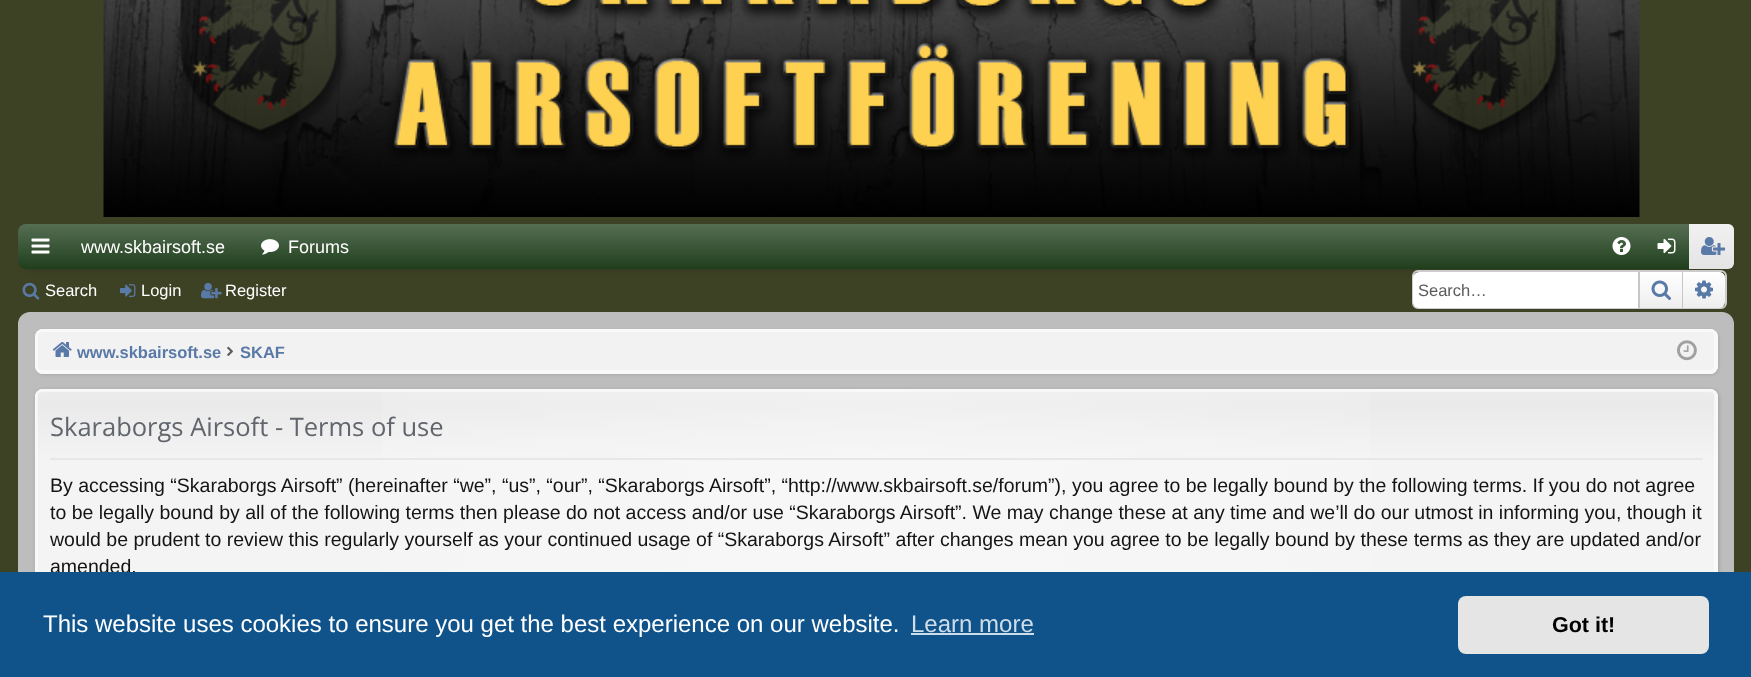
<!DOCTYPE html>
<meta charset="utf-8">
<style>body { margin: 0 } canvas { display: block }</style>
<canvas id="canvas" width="1751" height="677"></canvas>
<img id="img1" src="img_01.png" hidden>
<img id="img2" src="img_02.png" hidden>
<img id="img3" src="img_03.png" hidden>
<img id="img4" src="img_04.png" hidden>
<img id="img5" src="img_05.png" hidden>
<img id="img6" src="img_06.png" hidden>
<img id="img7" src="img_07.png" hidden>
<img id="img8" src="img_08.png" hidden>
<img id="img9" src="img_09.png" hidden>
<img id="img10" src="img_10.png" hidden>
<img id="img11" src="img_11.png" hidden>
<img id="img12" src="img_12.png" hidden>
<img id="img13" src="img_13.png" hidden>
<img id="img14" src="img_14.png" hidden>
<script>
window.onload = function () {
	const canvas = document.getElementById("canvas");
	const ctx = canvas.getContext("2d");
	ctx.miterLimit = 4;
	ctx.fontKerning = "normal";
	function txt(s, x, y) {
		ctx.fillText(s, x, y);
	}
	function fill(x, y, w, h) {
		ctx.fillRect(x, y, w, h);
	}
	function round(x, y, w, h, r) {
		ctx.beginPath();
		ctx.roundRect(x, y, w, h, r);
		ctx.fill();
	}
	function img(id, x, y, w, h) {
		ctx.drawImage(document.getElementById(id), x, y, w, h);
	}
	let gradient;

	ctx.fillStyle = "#3E4225";
	fill(0, 0, 1751, 677);
	ctx.fillStyle = "rgba(0, 0, 0, 0.2)";
	ctx.filter = "blur(4px)";
	ctx.beginPath();
	ctx.rect(26, 239, 1701, 30);
	ctx.fill();
	ctx.filter = "none";
	ctx.fillStyle = "#1F3F1C";
	round(18, 224, 1716, 45, 8);
	gradient = ctx.createLinearGradient(876, 223, 876, 269);
	gradient.addColorStop(0, "rgba(255, 255, 255, 0.25)");
	gradient.addColorStop(1, "rgba(255, 255, 255, 0)");
	ctx.fillStyle = gradient;
	round(18, 224, 1716, 45, 8);
	img("img1", 31, 238, 19, 16);
	img("img2", 261, 239, 18, 16);
	img("img3", 1612, 237, 19, 18);
	img("img4", 1657, 238, 19, 16);
	ctx.fillStyle = "#E4E4E4";
	ctx.beginPath();
	ctx.roundRect(1689, 224, 45, 45, [0, 6, 6, 0]);
	ctx.fill();
	gradient = ctx.createLinearGradient(1712, 224, 1712, 269);
	gradient.addColorStop(0, "rgba(255, 255, 255, 0.5)");
	gradient.addColorStop(1, "rgba(255, 255, 255, 0)");
	ctx.fillStyle = gradient;
	ctx.beginPath();
	ctx.roundRect(1689, 224, 45, 45, [0, 6, 6, 0]);
	ctx.fill();
	img("img5", 1701, 237, 24, 18);
	img("img6", 22, 282, 18, 18);
	img("img7", 120, 284, 16, 13);
	img("img8", 201, 282, 21, 17);
	img("img9", 103, 0, 1537, 217);
	ctx.beginPath();
	ctx.roundRect(1413, 271, 313, 37, 5);
	ctx.strokeStyle = "#CCCCCC";
	ctx.lineWidth = 2;
	ctx.stroke();
	ctx.fillStyle = "#FFFFFF";
	ctx.beginPath();
	ctx.roundRect(1413, 272, 225, 36, [6, 0, 0, 6]);
	ctx.fill();
	gradient = ctx.createLinearGradient(1661, 272, 1661, 308);
	gradient.addColorStop(0, "#FFFFFF");
	gradient.addColorStop(1, "#EEEEEE");
	ctx.fillStyle = gradient;
	fill(1640, 272, 42, 36);
	ctx.fillStyle = "#C6C6C6";
	fill(1682, 272, 1, 36);
	fill(1638, 272, 2, 36);
	img("img10", 1651, 280, 20, 20);
	ctx.fillStyle = "#EEEEEE";
	ctx.beginPath();
	ctx.roundRect(1683, 272, 42, 36, [0, 6, 6, 0]);
	ctx.fill();
	gradient = ctx.createLinearGradient(1704, 272, 1704, 308);
	gradient.addColorStop(0, "#FFFFFF");
	gradient.addColorStop(1, "rgba(255, 255, 255, 0)");
	ctx.fillStyle = gradient;
	ctx.beginPath();
	ctx.roundRect(1683, 272, 42, 36, [0, 6, 6, 0]);
	ctx.fill();
	img("img11", 1695, 280, 18, 19);
	ctx.fillStyle = "#BDBDBD";
	ctx.beginPath();
	ctx.roundRect(19, 313, 1714, 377, 11);
	ctx.fill();
	ctx.strokeStyle = "#BDBDBD";
	ctx.stroke();
	ctx.fillStyle = "rgba(0, 0, 0, 0.1)";
	ctx.filter = "blur(1.5px)";
	ctx.beginPath();
	ctx.roundRect(36, 330, 1683, 45, 8);
	ctx.fill();
	ctx.filter = "none";
	ctx.fillStyle = "#F2F2F2";
	round(35, 329, 1683, 45, 8);
	ctx.beginPath();
	ctx.roundRect(37, 331, 1678, 40, 5);
	ctx.strokeStyle = "#F9F9F9";
	ctx.stroke();
	ctx.beginPath();
	ctx.roundRect(36, 330, 1681, 43, 7);
	ctx.stroke();
	img("img12", 52, 342, 20, 15);
	img("img13", 227, 346, 6, 10);
	img("img14", 1677, 340, 20, 21);
	ctx.fillStyle = "rgba(0, 0, 0, 0.15)";
	ctx.filter = "blur(2px)";
	ctx.beginPath();
	ctx.roundRect(36, 390, 1683, 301, 8);
	ctx.fill();
	ctx.filter = "none";
	ctx.fillStyle = "#F4F4F4";
	round(35, 389, 1683, 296, 8);
	ctx.save();
	ctx.beginPath();
	ctx.roundRect(35, 389, 1683, 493, 8);
	ctx.clip();
	gradient = ctx.createLinearGradient(876, 390, 876, 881);
	gradient.addColorStop(0, "rgba(204, 204, 204, 0.2)");
	gradient.addColorStop(0.03, "rgba(204, 204, 204, 0.25)");
	gradient.addColorStop(0.15, "rgba(204, 204, 204, 0)");
	ctx.fillStyle = gradient;
	fill(35, 390, 1683, 69);
	ctx.restore();
	gradient = ctx.createLinearGradient(36, 635, 1716, 635);
	gradient.addColorStop(0, "rgba(255, 255, 255, 0)");
	gradient.addColorStop(0.5, "rgba(255, 255, 255, 0.3)");
	gradient.addColorStop(1, "rgba(255, 255, 255, 0)");
	ctx.fillStyle = gradient;
	fill(382, 391, 988, 181);
	ctx.beginPath();
	ctx.roundRect(37, 391, 1678, 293, 5);
	ctx.strokeStyle = "rgba(255, 255, 255, 0.5)";
	ctx.stroke();
	ctx.beginPath();
	ctx.roundRect(36, 390, 1681, 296, 7);
	ctx.strokeStyle = "#F9F9F9";
	ctx.stroke();
	ctx.fillStyle = "#E7E7E7";
	fill(50, 458, 1653, 2);
	ctx.font = "18px Liberation Sans";
	ctx.fillStyle = "#FFFFFF";
	txt("www.skbairsoft.se", 81, 253);
	txt("Forums", 288, 253);
	ctx.font = "16.5px Liberation Sans";
	txt("Search", 45, 296);
	txt("Login", 141, 296);
	txt("Register", 225, 296);
	ctx.fillStyle = "#5B5B5B";
	txt("Search…", 1418, 296);
	ctx.font = "bold 16.5px Liberation Sans";
	ctx.fillStyle = "#5979A7";
	txt("www.skbairsoft.se", 77, 358);
	txt("SKAF", 240, 358);
	ctx.font = "25.5px Open Sans";
	ctx.fillStyle = "#61656C";
	txt("Skaraborgs Airsoft - Terms of use", 50, 436);
	ctx.font = "19.5px Liberation Sans";
	ctx.fillStyle = "#141414";
	txt("By accessing “Skaraborgs Airsoft” (hereinafter “we”, “us”, “our”, “Skaraborgs Airsoft”, “http://www.skbairsoft.se/forum”), you agree to be legally bound by the following terms. If you do not agree", 50, 492);
	txt("to be legally bound by all of the following terms then please do not access and/or use “Skaraborgs Airsoft”. We may change these at any time and we’ll do our utmost in informing you, though it", 50, 519);
	txt("would be prudent to review this regularly yourself as your continued usage of “Skaraborgs Airsoft” after changes mean you agree to be legally bound by these terms as they are updated and/or", 50, 546);
	txt("amended.", 50, 573);
	ctx.fillStyle = "#0F538A";
	fill(0, 572, 1751, 105);
	ctx.font = "24px Liberation Sans";
	ctx.fillStyle = "#FFFFFF";
	txt("This website uses cookies to ensure you get the best experience on our website.", 43, 632);
	ctx.fillStyle = "#CFDDE8";
	txt("Learn more", 911, 632);
	fill(911, 633, 123, 2);
	ctx.fillStyle = "#E5E5E5";
	round(1458, 596, 251, 58, 8);
	ctx.font = "bold 21.5px Liberation Sans";
	ctx.fillStyle = "#000000";
	txt("Got it!", 1552, 632);
};
</script>
